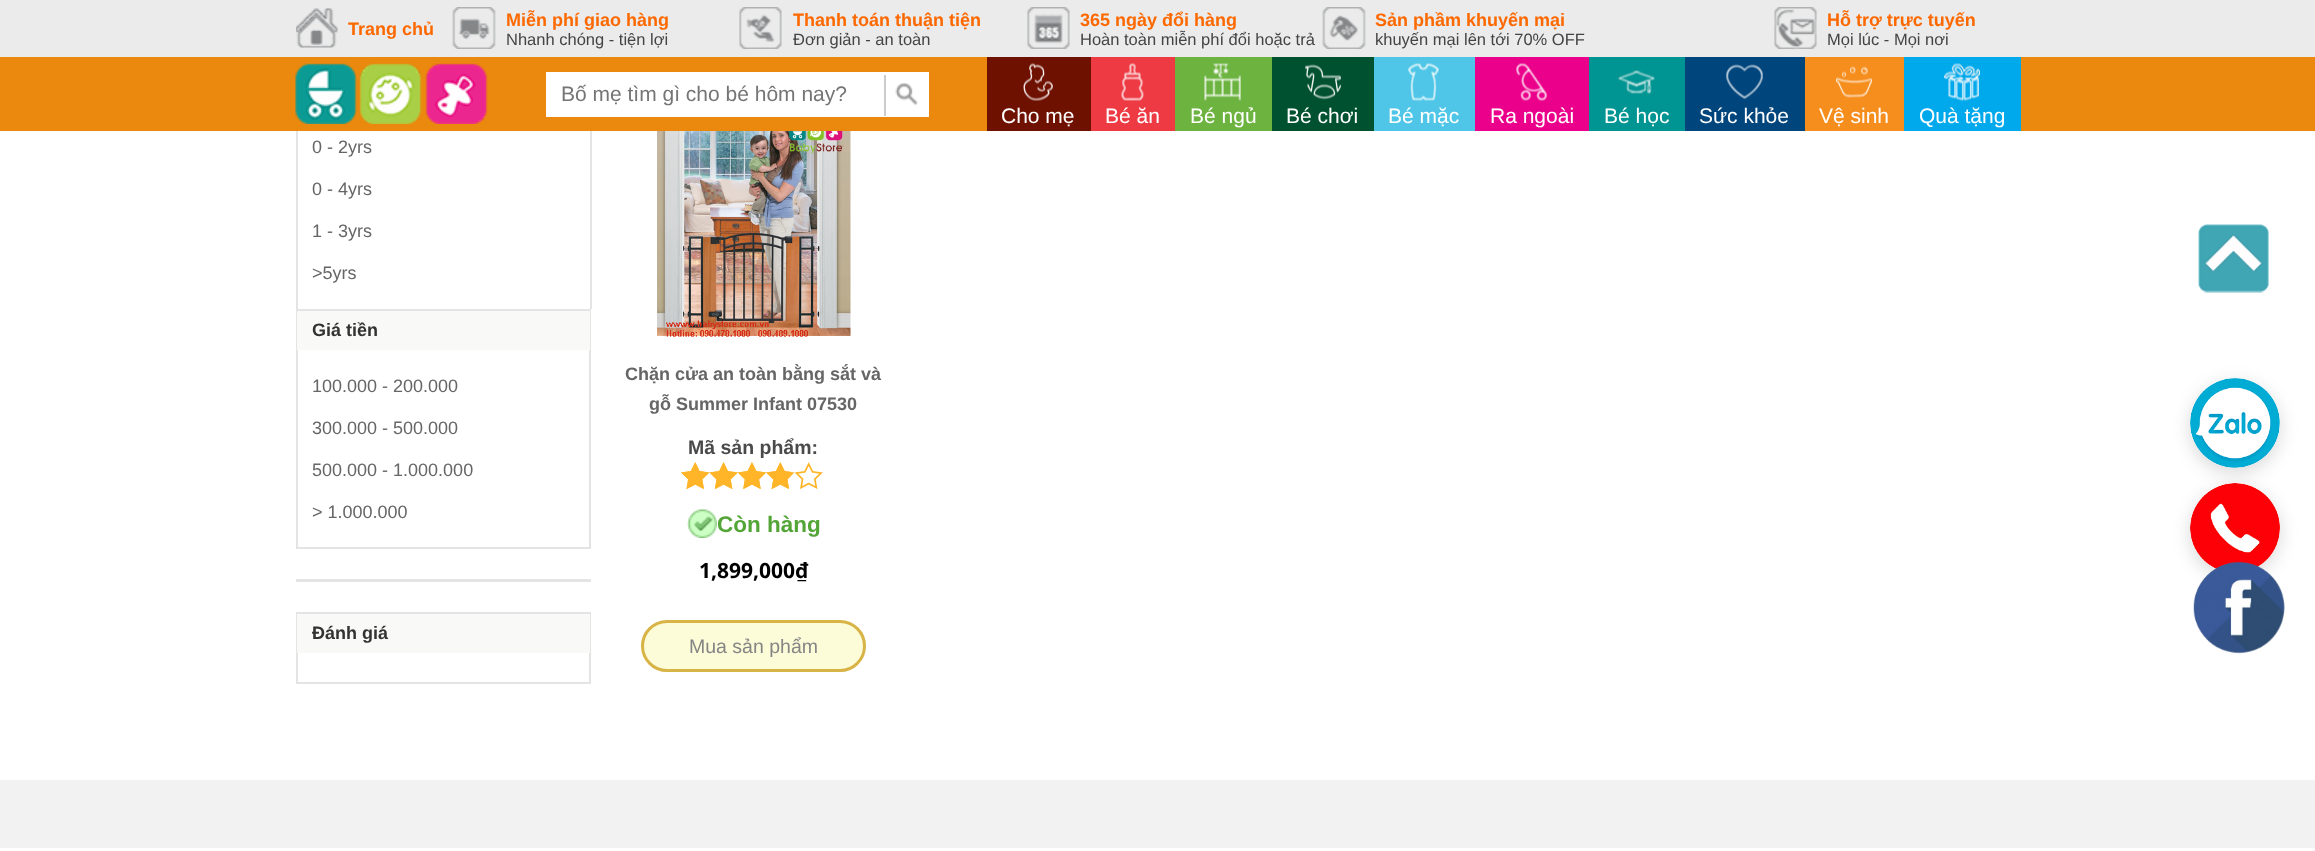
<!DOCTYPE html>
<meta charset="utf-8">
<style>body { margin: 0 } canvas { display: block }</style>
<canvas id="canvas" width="2315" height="851"></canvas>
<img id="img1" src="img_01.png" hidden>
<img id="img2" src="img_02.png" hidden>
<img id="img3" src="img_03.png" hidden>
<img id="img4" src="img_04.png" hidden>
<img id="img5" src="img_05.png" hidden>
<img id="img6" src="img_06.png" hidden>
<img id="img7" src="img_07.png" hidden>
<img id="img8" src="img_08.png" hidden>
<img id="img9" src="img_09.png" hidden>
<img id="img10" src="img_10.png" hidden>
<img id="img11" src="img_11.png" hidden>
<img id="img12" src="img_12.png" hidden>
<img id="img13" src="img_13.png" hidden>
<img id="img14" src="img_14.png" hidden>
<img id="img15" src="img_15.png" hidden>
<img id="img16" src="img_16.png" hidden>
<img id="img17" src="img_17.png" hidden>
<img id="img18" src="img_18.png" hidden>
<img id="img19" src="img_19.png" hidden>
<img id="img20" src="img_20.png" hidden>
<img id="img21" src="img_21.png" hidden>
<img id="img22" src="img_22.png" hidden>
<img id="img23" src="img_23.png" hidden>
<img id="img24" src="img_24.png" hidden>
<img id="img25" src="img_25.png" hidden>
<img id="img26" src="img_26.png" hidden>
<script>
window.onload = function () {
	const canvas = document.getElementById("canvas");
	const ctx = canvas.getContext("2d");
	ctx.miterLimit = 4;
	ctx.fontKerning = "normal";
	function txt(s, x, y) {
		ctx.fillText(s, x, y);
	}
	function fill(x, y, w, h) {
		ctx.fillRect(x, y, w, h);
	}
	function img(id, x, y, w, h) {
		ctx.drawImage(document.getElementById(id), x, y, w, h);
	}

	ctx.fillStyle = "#FFFFFF";
	fill(0, 0, 2315, 851);
	ctx.fillStyle = "#EBEBEB";
	fill(0, 0, 2315, 57);
	img("img1", 296, 8, 42, 40);
	img("img2", 452, 7, 44, 42);
	img("img3", 739, 7, 43, 42);
	img("img4", 1027, 7, 43, 42);
	img("img5", 1322, 7, 44, 42);
	img("img6", 1774, 7, 43, 42);
	ctx.fillStyle = "#EB880E";
	fill(0, 57, 2315, 74);
	img("img7", 295, 63, 193, 61);
	ctx.fillStyle = "#FFFFFF";
	fill(546, 72, 383, 45);
	img("img8", 895, 83, 23, 22);
	ctx.fillStyle = "#CCCCCC";
	fill(884, 75, 2, 41);
	ctx.fillStyle = "#6F1100";
	fill(987, 57, 104, 74);
	img("img9", 1023, 63, 30, 38);
	ctx.fillStyle = "#EE3A43";
	fill(1091, 57, 84, 74);
	img("img10", 1121, 63, 23, 38);
	ctx.fillStyle = "#6CB33F";
	fill(1175, 57, 97, 74);
	img("img11", 1204, 63, 37, 38);
	ctx.fillStyle = "#00512F";
	fill(1272, 57, 102, 74);
	img("img12", 1305, 64, 36, 36);
	ctx.fillStyle = "#4FC6E7";
	fill(1374, 57, 101, 74);
	img("img13", 1407, 63, 32, 38);
	ctx.fillStyle = "#EB008B";
	fill(1475, 57, 114, 74);
	img("img14", 1516, 63, 32, 38);
	ctx.fillStyle = "#009592";
	fill(1589, 57, 96, 74);
	img("img15", 1618, 70, 37, 24);
	ctx.fillStyle = "#00457C";
	fill(1685, 57, 120, 74);
	img("img16", 1726, 64, 37, 36);
	ctx.fillStyle = "#F68E1E";
	fill(1805, 57, 99, 74);
	img("img17", 1836, 66, 36, 32);
	ctx.fillStyle = "#00A8EC";
	fill(1904, 57, 117, 74);
	img("img18", 1944, 63, 36, 38);
	ctx.fillStyle = "#E4E4E4";
	fill(590, 131, 2, 178);
	fill(296, 131, 2, 178);
	ctx.strokeStyle = "#E4E4E4";
	ctx.lineWidth = 2;
	ctx.strokeRect(297, 310, 293, 238);
	ctx.fillStyle = "#F9FAF7";
	fill(297, 311, 293, 39);
	ctx.fillStyle = "#E4E4E4";
	fill(296, 579, 295, 3);
	ctx.strokeRect(297, 613, 293, 70);
	ctx.fillStyle = "#F9FAF7";
	fill(297, 614, 293, 39);
	img("img19", 657, 131, 194, 206);
	img("img20", 681, 462, 142, 27);
	img("img21", 681, 462, 110, 27);
	img("img22", 687, 509, 30, 29);
	ctx.fillStyle = "#FCFCD8";
	ctx.beginPath();
	ctx.roundRect(642.5, 621.5, 222, 49, 24.5);
	ctx.fill();
	ctx.strokeStyle = "#D8B345";
	ctx.lineWidth = 3;
	ctx.stroke();
	img("img23", 2198, 224, 71, 69);
	ctx.fillStyle = "rgba(0, 0, 0, 0.15)";
	ctx.filter = "blur(9px)";
	ctx.beginPath();
	ctx.roundRect(2190, 383, 90, 90, 45);
	ctx.fill();
	ctx.filter = "none";
	ctx.fillStyle = "#FFFFFF";
	ctx.beginPath();
	ctx.arc(2235, 423, 45, 0, Math.PI * 2);
	ctx.fill();
	img("img24", 2190, 378, 90, 90);
	ctx.fillStyle = "rgba(0, 0, 0, 0.15)";
	ctx.filter = "blur(9px)";
	ctx.beginPath();
	ctx.roundRect(2190, 488, 90, 90, 45);
	ctx.fill();
	ctx.filter = "none";
	ctx.fillStyle = "#FFFFFF";
	ctx.beginPath();
	ctx.arc(2235, 528, 45, 0, Math.PI * 2);
	ctx.fill();
	img("img25", 2190, 483, 90, 86);
	img("img26", 2193, 561, 92, 93);
	ctx.fillStyle = "#F2F2F2";
	fill(0, 780, 2315, 68);
	ctx.font = "bold 18px Liberation Sans";
	ctx.fillStyle = "#FD6900";
	txt("Trang chủ", 348, 35);
	txt("Miễn phí giao hàng", 506, 26);
	ctx.font = "16.5px Liberation Sans";
	ctx.fillStyle = "#444444";
	txt("Nhanh chóng - tiện lợi", 506, 45);
	ctx.font = "bold 18px Liberation Sans";
	ctx.fillStyle = "#FD6900";
	txt("Thanh toán thuận tiện", 793, 26);
	ctx.font = "16.5px Liberation Sans";
	ctx.fillStyle = "#444444";
	txt("Đơn giản - an toàn", 793, 45);
	ctx.font = "bold 18px Liberation Sans";
	ctx.fillStyle = "#FD6900";
	txt("365 ngày đổi hàng", 1080, 26);
	ctx.font = "16.5px Liberation Sans";
	ctx.fillStyle = "#444444";
	txt("Hoàn toàn miễn phí đổi hoặc trả", 1080, 45);
	ctx.font = "bold 18px Liberation Sans";
	ctx.fillStyle = "#FD6900";
	txt("Sản phầm khuyến mại", 1375, 26);
	ctx.font = "16.5px Liberation Sans";
	ctx.fillStyle = "#444444";
	txt("khuyến mại lên tới 70% OFF", 1375, 45);
	ctx.font = "bold 18px Liberation Sans";
	ctx.fillStyle = "#FD6900";
	txt("Hỗ trợ trực tuyến", 1827, 26);
	ctx.font = "16.5px Liberation Sans";
	ctx.fillStyle = "#444444";
	txt("Mọi lúc - Mọi nơi", 1827, 45);
	ctx.font = "21px Liberation Sans";
	ctx.fillStyle = "#757575";
	txt("Bố mẹ tìm gì cho bé hôm nay?", 561, 101);
	ctx.fillStyle = "#FFFFFF";
	txt("Cho mẹ", 1001, 123);
	txt("Bé ăn", 1105, 123);
	txt("Bé ngủ", 1190, 123);
	txt("Bé chơi", 1286, 123);
	txt("Bé mặc", 1388, 123);
	txt("Ra ngoài", 1490, 123);
	txt("Bé học", 1604, 123);
	txt("Sức khỏe", 1699, 123);
	txt("Vệ sinh", 1819, 123);
	txt("Quà tặng", 1919, 123);
	ctx.font = "18px Liberation Sans";
	ctx.fillStyle = "#666666";
	txt("0 - 2yrs", 312, 153);
	txt("0 - 4yrs", 312, 195);
	txt("1 - 3yrs", 312, 237);
	txt(">5yrs", 312, 279);
	ctx.font = "bold 18px Liberation Sans";
	ctx.fillStyle = "#333333";
	txt("Giá tiền", 312, 336);
	ctx.font = "18px Liberation Sans";
	ctx.fillStyle = "#666666";
	txt("100.000 - 200.000", 312, 392);
	txt("300.000 - 500.000", 312, 434);
	txt("500.000 - 1.000.000", 312, 476);
	txt("> 1.000.000", 312, 518);
	ctx.font = "bold 18px Liberation Sans";
	ctx.fillStyle = "#333333";
	txt("Đánh giá", 312, 639);
	ctx.fillStyle = "#666666";
	txt("Chặn cửa an toàn bằng sắt và", 625, 380);
	txt("gỗ Summer Infant 07530", 649, 410);
	ctx.font = "bold 19.5px Liberation Sans";
	ctx.fillStyle = "#4A4A4A";
	txt("Mã sản phẩm:", 688, 454);
	ctx.font = "bold 22.5px Liberation Sans";
	ctx.fillStyle = "#52A536";
	txt("Còn hàng", 717, 532);
	ctx.font = "bold 21px Open Sans";
	ctx.fillStyle = "#000000";
	txt("1,899,000₫", 699, 578);
	ctx.font = "19.5px Liberation Sans";
	ctx.fillStyle = "#858585";
	txt("Mua sản phẩm", 689, 653);
};
</script>
